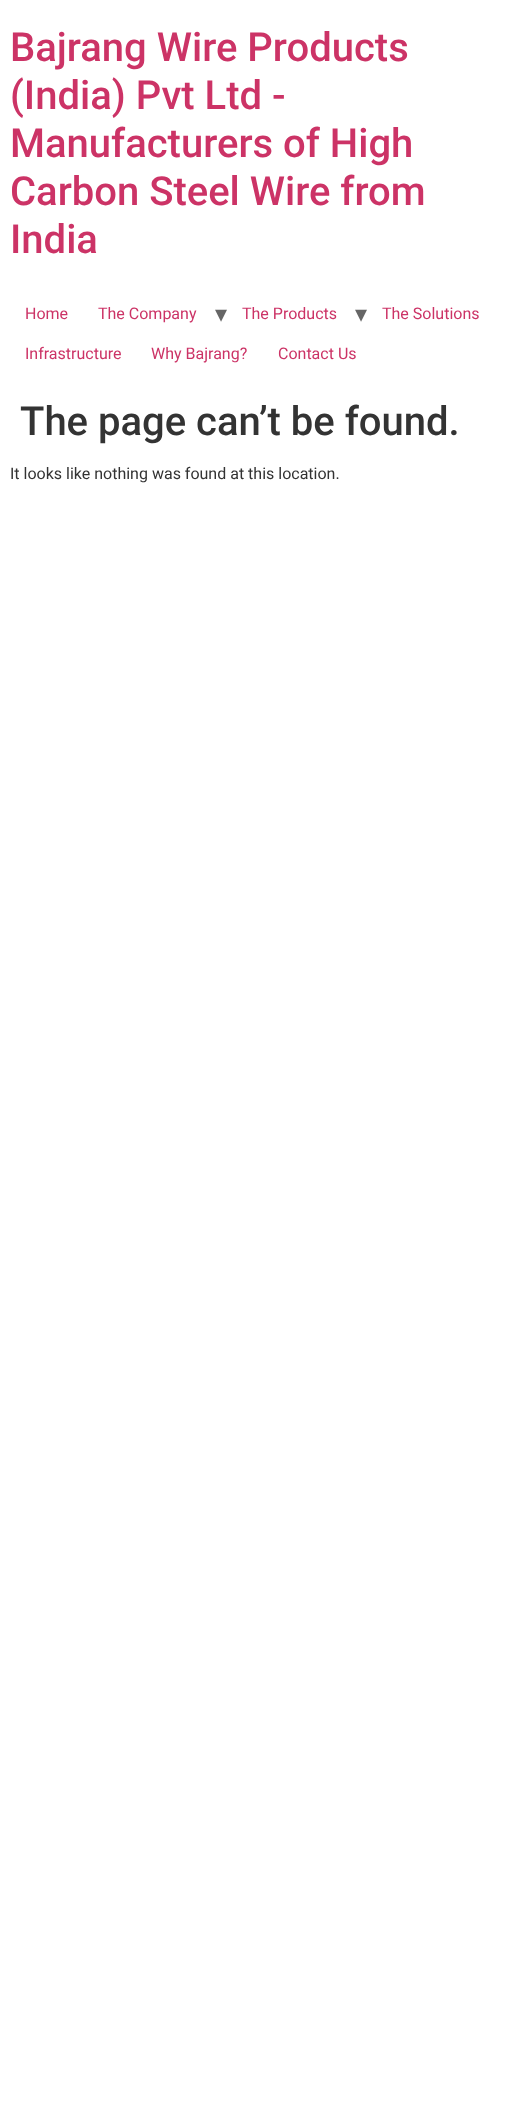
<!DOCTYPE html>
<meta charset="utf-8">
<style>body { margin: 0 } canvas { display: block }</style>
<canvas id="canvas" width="525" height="2103"></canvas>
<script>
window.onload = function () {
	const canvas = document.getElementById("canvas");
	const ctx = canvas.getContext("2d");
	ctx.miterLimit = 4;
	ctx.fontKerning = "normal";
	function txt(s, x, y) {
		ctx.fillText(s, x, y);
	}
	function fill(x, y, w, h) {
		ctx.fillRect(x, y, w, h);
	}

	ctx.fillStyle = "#FFFFFF";
	fill(0, 0, 525, 2103);
	ctx.font = "500 40px Roboto";
	ctx.fillStyle = "#CC3366";
	txt("Bajrang Wire Products", 10, 61);
	txt("(India) Pvt Ltd -", 10, 109);
	txt("Manufacturers of High", 10, 157);
	txt("Carbon Steel Wire from", 10, 205);
	txt("India", 10, 253);
	ctx.font = "16px Roboto";
	txt("Home", 25, 319);
	txt("The Company", 98, 319);
	ctx.font = "24px DejaVu Sans";
	ctx.fillStyle = "#666666";
	txt("▾", 215, 322);
	ctx.font = "16px Roboto";
	ctx.fillStyle = "#CC3366";
	txt("The Products", 242, 319);
	ctx.font = "24px DejaVu Sans";
	ctx.fillStyle = "#666666";
	txt("▾", 355, 322);
	ctx.font = "16px Roboto";
	ctx.fillStyle = "#CC3366";
	txt("The Solutions", 382, 319);
	txt("Infrastructure", 25, 359);
	txt("Why Bajrang?", 151, 359);
	txt("Contact Us", 278, 359);
	ctx.font = "500 40px Roboto";
	ctx.fillStyle = "#333333";
	txt("The page can’t be found.", 20, 435);
	ctx.font = "16px Roboto";
	txt("It looks like nothing was found at this location.", 10, 479);
};
</script>
